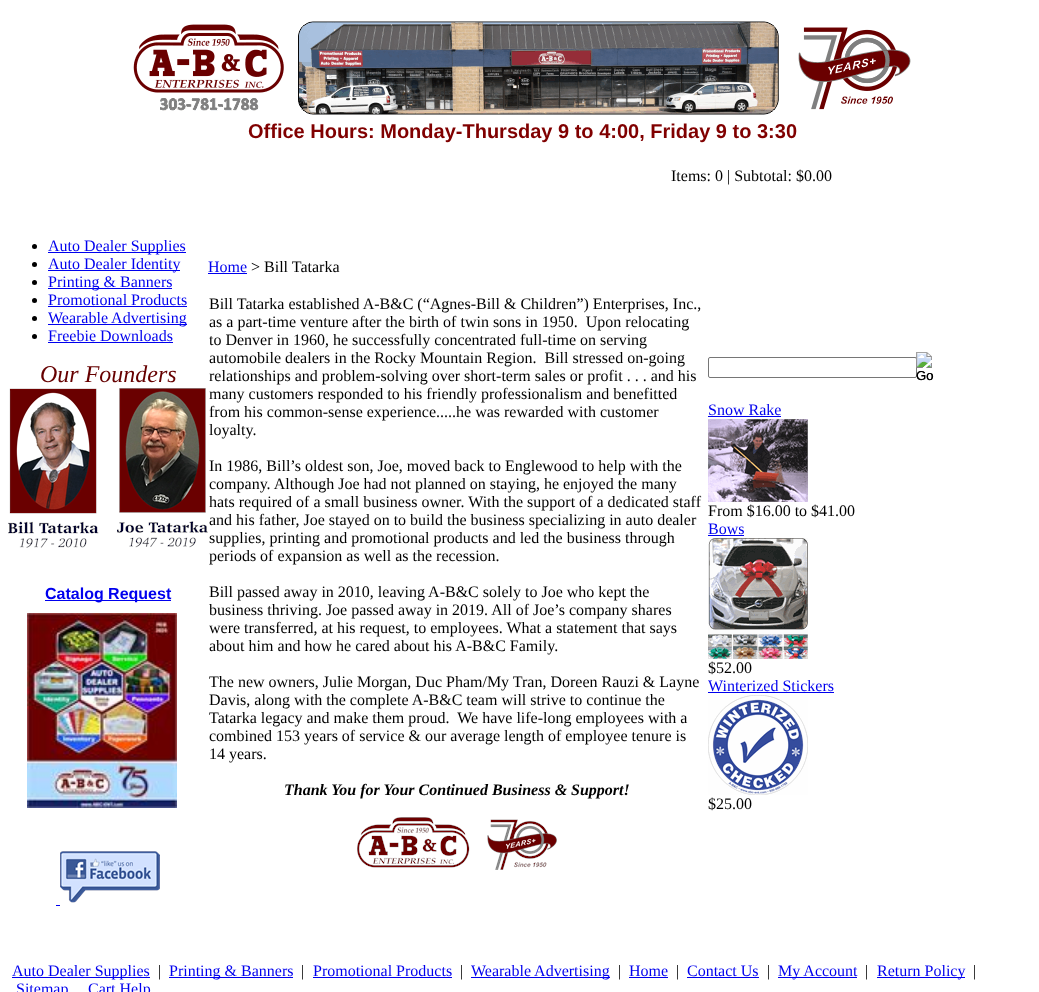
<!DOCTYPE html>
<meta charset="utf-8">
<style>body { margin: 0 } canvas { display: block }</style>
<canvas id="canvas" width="1039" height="992"></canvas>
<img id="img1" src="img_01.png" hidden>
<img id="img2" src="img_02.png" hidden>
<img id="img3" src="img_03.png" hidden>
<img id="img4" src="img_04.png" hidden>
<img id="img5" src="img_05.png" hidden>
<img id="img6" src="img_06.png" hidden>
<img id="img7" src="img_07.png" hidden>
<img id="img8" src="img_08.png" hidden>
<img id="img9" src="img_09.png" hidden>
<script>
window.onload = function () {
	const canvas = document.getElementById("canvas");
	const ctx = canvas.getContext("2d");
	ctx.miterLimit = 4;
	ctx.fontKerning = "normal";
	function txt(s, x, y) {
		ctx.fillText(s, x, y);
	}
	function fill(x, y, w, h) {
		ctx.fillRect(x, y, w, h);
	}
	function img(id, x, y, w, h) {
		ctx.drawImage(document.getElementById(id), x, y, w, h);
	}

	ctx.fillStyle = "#FFFFFF";
	fill(0, 0, 1039, 992);
	img("img1", 133, 21, 778, 94);
	ctx.fillStyle = "#000000";
	ctx.beginPath();
	ctx.arc(34.5, 246.5, 2.5, 0, Math.PI * 2);
	ctx.fill();
	ctx.fillStyle = "#0000EE";
	fill(48, 252, 138, 1);
	ctx.fillStyle = "#000000";
	ctx.beginPath();
	ctx.arc(34.5, 264.5, 2.5, 0, Math.PI * 2);
	ctx.fill();
	ctx.fillStyle = "#0000EE";
	fill(48, 270, 132, 1);
	ctx.fillStyle = "#000000";
	ctx.beginPath();
	ctx.arc(34.5, 282.5, 2.5, 0, Math.PI * 2);
	ctx.fill();
	ctx.fillStyle = "#0000EE";
	fill(48, 288, 124, 1);
	ctx.fillStyle = "#000000";
	ctx.beginPath();
	ctx.arc(34.5, 300.5, 2.5, 0, Math.PI * 2);
	ctx.fill();
	ctx.fillStyle = "#0000EE";
	fill(48, 306, 139, 1);
	ctx.fillStyle = "#000000";
	ctx.beginPath();
	ctx.arc(34.5, 318.5, 2.5, 0, Math.PI * 2);
	ctx.fill();
	ctx.fillStyle = "#0000EE";
	fill(48, 324, 139, 1);
	ctx.fillStyle = "#000000";
	ctx.beginPath();
	ctx.arc(34.5, 336.5, 2.5, 0, Math.PI * 2);
	ctx.fill();
	ctx.fillStyle = "#0000EE";
	fill(48, 342, 125, 1);
	img("img2", 8, 388, 200, 160);
	fill(45, 600, 126, 1);
	img("img3", 27, 613, 150, 195);
	img("img4", 60, 851, 100, 52);
	fill(56, 905, 4, 1);
	fill(208, 273, 39, 1);
	img("img5", 357, 817, 200, 53);
	ctx.beginPath();
	ctx.roundRect(708.5, 357.5, 208, 20, 1.5);
	ctx.strokeStyle = "#767676";
	ctx.stroke();
	img("img6", 916, 352, 18, 28);
	fill(708, 416, 73, 1);
	img("img7", 708, 419, 100, 83);
	fill(708, 535, 36, 1);
	img("img8", 708, 538, 100, 121);
	fill(708, 692, 126, 1);
	img("img9", 708, 695, 100, 100);
	fill(12, 977, 138, 1);
	fill(169, 977, 124, 1);
	fill(313, 977, 139, 1);
	fill(471, 977, 139, 1);
	fill(629, 977, 39, 1);
	fill(687, 977, 72, 1);
	fill(778, 977, 79, 1);
	fill(877, 977, 88, 1);
	ctx.font = "bold 20px Liberation Sans";
	ctx.fillStyle = "#800000";
	txt("Office Hours: Monday-Thursday 9 to 4:00, Friday 9 to 3:30", 248, 138);
	ctx.font = "16px Liberation Serif";
	ctx.fillStyle = "#000000";
	txt("Items: 0 | Subtotal: $0.00", 671, 181);
	ctx.fillStyle = "#0000EE";
	txt("Auto Dealer Supplies", 48, 251);
	txt("Auto Dealer Identity", 48, 269);
	txt("Printing & Banners", 48, 287);
	txt("Promotional Products", 48, 305);
	txt("Wearable Advertising", 48, 323);
	txt("Freebie Downloads", 48, 341);
	ctx.font = "italic 24px Liberation Serif";
	ctx.fillStyle = "#660000";
	txt("Our Founders", 40, 382);
	ctx.font = "bold 16px Liberation Sans";
	ctx.fillStyle = "#0000EE";
	txt("Catalog Request", 45, 599);
	ctx.font = "16px Liberation Serif";
	txt("Home", 208, 272);
	ctx.fillStyle = "#000000";
	txt("> Bill Tatarka", 251, 272);
	txt("Bill Tatarka established A-B&C (“Agnes-Bill & Children”) Enterprises, Inc.,", 209, 309);
	txt("as a part-time venture after the birth of twin sons in 1950.  Upon relocating", 209, 327);
	txt("to Denver in 1960, he successfully concentrated full-time on serving", 209, 345);
	txt("automobile dealers in the Rocky Mountain Region.  Bill stressed on-going", 209, 363);
	txt("relationships and problem-solving over short-term sales or profit . . . and his", 209, 381);
	txt("many customers responded to his friendly professionalism and benefitted", 209, 399);
	txt("from his common-sense experience.....he was rewarded with customer", 209, 417);
	txt("loyalty.", 209, 435);
	txt("In 1986, Bill’s oldest son, Joe, moved back to Englewood to help with the", 209, 471);
	txt("company. Although Joe had not planned on staying, he enjoyed the many", 209, 489);
	txt("hats required of a small business owner. With the support of a dedicated staff", 209, 507);
	txt("and his father, Joe stayed on to build the business specializing in auto dealer", 209, 525);
	txt("supplies, printing and promotional products and led the business through", 209, 543);
	txt("periods of expansion as well as the recession.", 209, 561);
	txt("Bill passed away in 2010, leaving A-B&C solely to Joe who kept the", 209, 597);
	txt("business thriving. Joe passed away in 2019. All of Joe’s company shares", 209, 615);
	txt("were transferred, at his request, to employees. What a statement that says", 209, 633);
	txt("about him and how he cared about his A-B&C Family.", 209, 651);
	txt("The new owners, Julie Morgan, Duc Pham/My Tran, Doreen Rauzi & Layne", 209, 687);
	txt("Davis, along with the complete A-B&C team will strive to continue the", 209, 705);
	txt("Tatarka legacy and make them proud.  We have life-long employees with a", 209, 723);
	txt("combined 153 years of service & our average length of employee tenure is", 209, 741);
	txt("14 years.", 209, 759);
	ctx.font = "italic bold 16px Liberation Serif";
	txt("Thank You for Your Continued Business & Support!", 284, 795);
	ctx.font = "13px Liberation Sans";
	txt("Go", 916, 380);
	ctx.font = "16px Liberation Serif";
	ctx.fillStyle = "#0000EE";
	txt("Snow Rake", 708, 415);
	ctx.fillStyle = "#000000";
	txt("From $16.00 to $41.00", 708, 516);
	ctx.fillStyle = "#0000EE";
	txt("Bows", 708, 534);
	ctx.fillStyle = "#000000";
	txt("$52.00", 708, 673);
	ctx.fillStyle = "#0000EE";
	txt("Winterized Stickers", 708, 691);
	ctx.fillStyle = "#000000";
	txt("$25.00", 708, 809);
	ctx.fillStyle = "#0000EE";
	txt("Auto Dealer Supplies", 12, 976);
	ctx.fillStyle = "#000000";
	txt("|", 158, 976);
	ctx.fillStyle = "#0000EE";
	txt("Printing & Banners", 169, 976);
	ctx.fillStyle = "#000000";
	txt("|", 301, 976);
	ctx.fillStyle = "#0000EE";
	txt("Promotional Products", 313, 976);
	ctx.fillStyle = "#000000";
	txt("|", 460, 976);
	ctx.fillStyle = "#0000EE";
	txt("Wearable Advertising", 471, 976);
	ctx.fillStyle = "#000000";
	txt("|", 618, 976);
	ctx.fillStyle = "#0000EE";
	txt("Home", 629, 976);
	ctx.fillStyle = "#000000";
	txt("|", 676, 976);
	ctx.fillStyle = "#0000EE";
	txt("Contact Us", 687, 976);
	ctx.fillStyle = "#000000";
	txt("|", 767, 976);
	ctx.fillStyle = "#0000EE";
	txt("My Account", 778, 976);
	ctx.fillStyle = "#000000";
	txt("|", 865, 976);
	ctx.fillStyle = "#0000EE";
	txt("Return Policy", 877, 976);
	ctx.fillStyle = "#000000";
	txt("|", 973, 976);
	ctx.fillStyle = "#0000EE";
	txt("Sitemap", 16, 994);
	txt("Cart Help", 88, 994);
};
</script>
